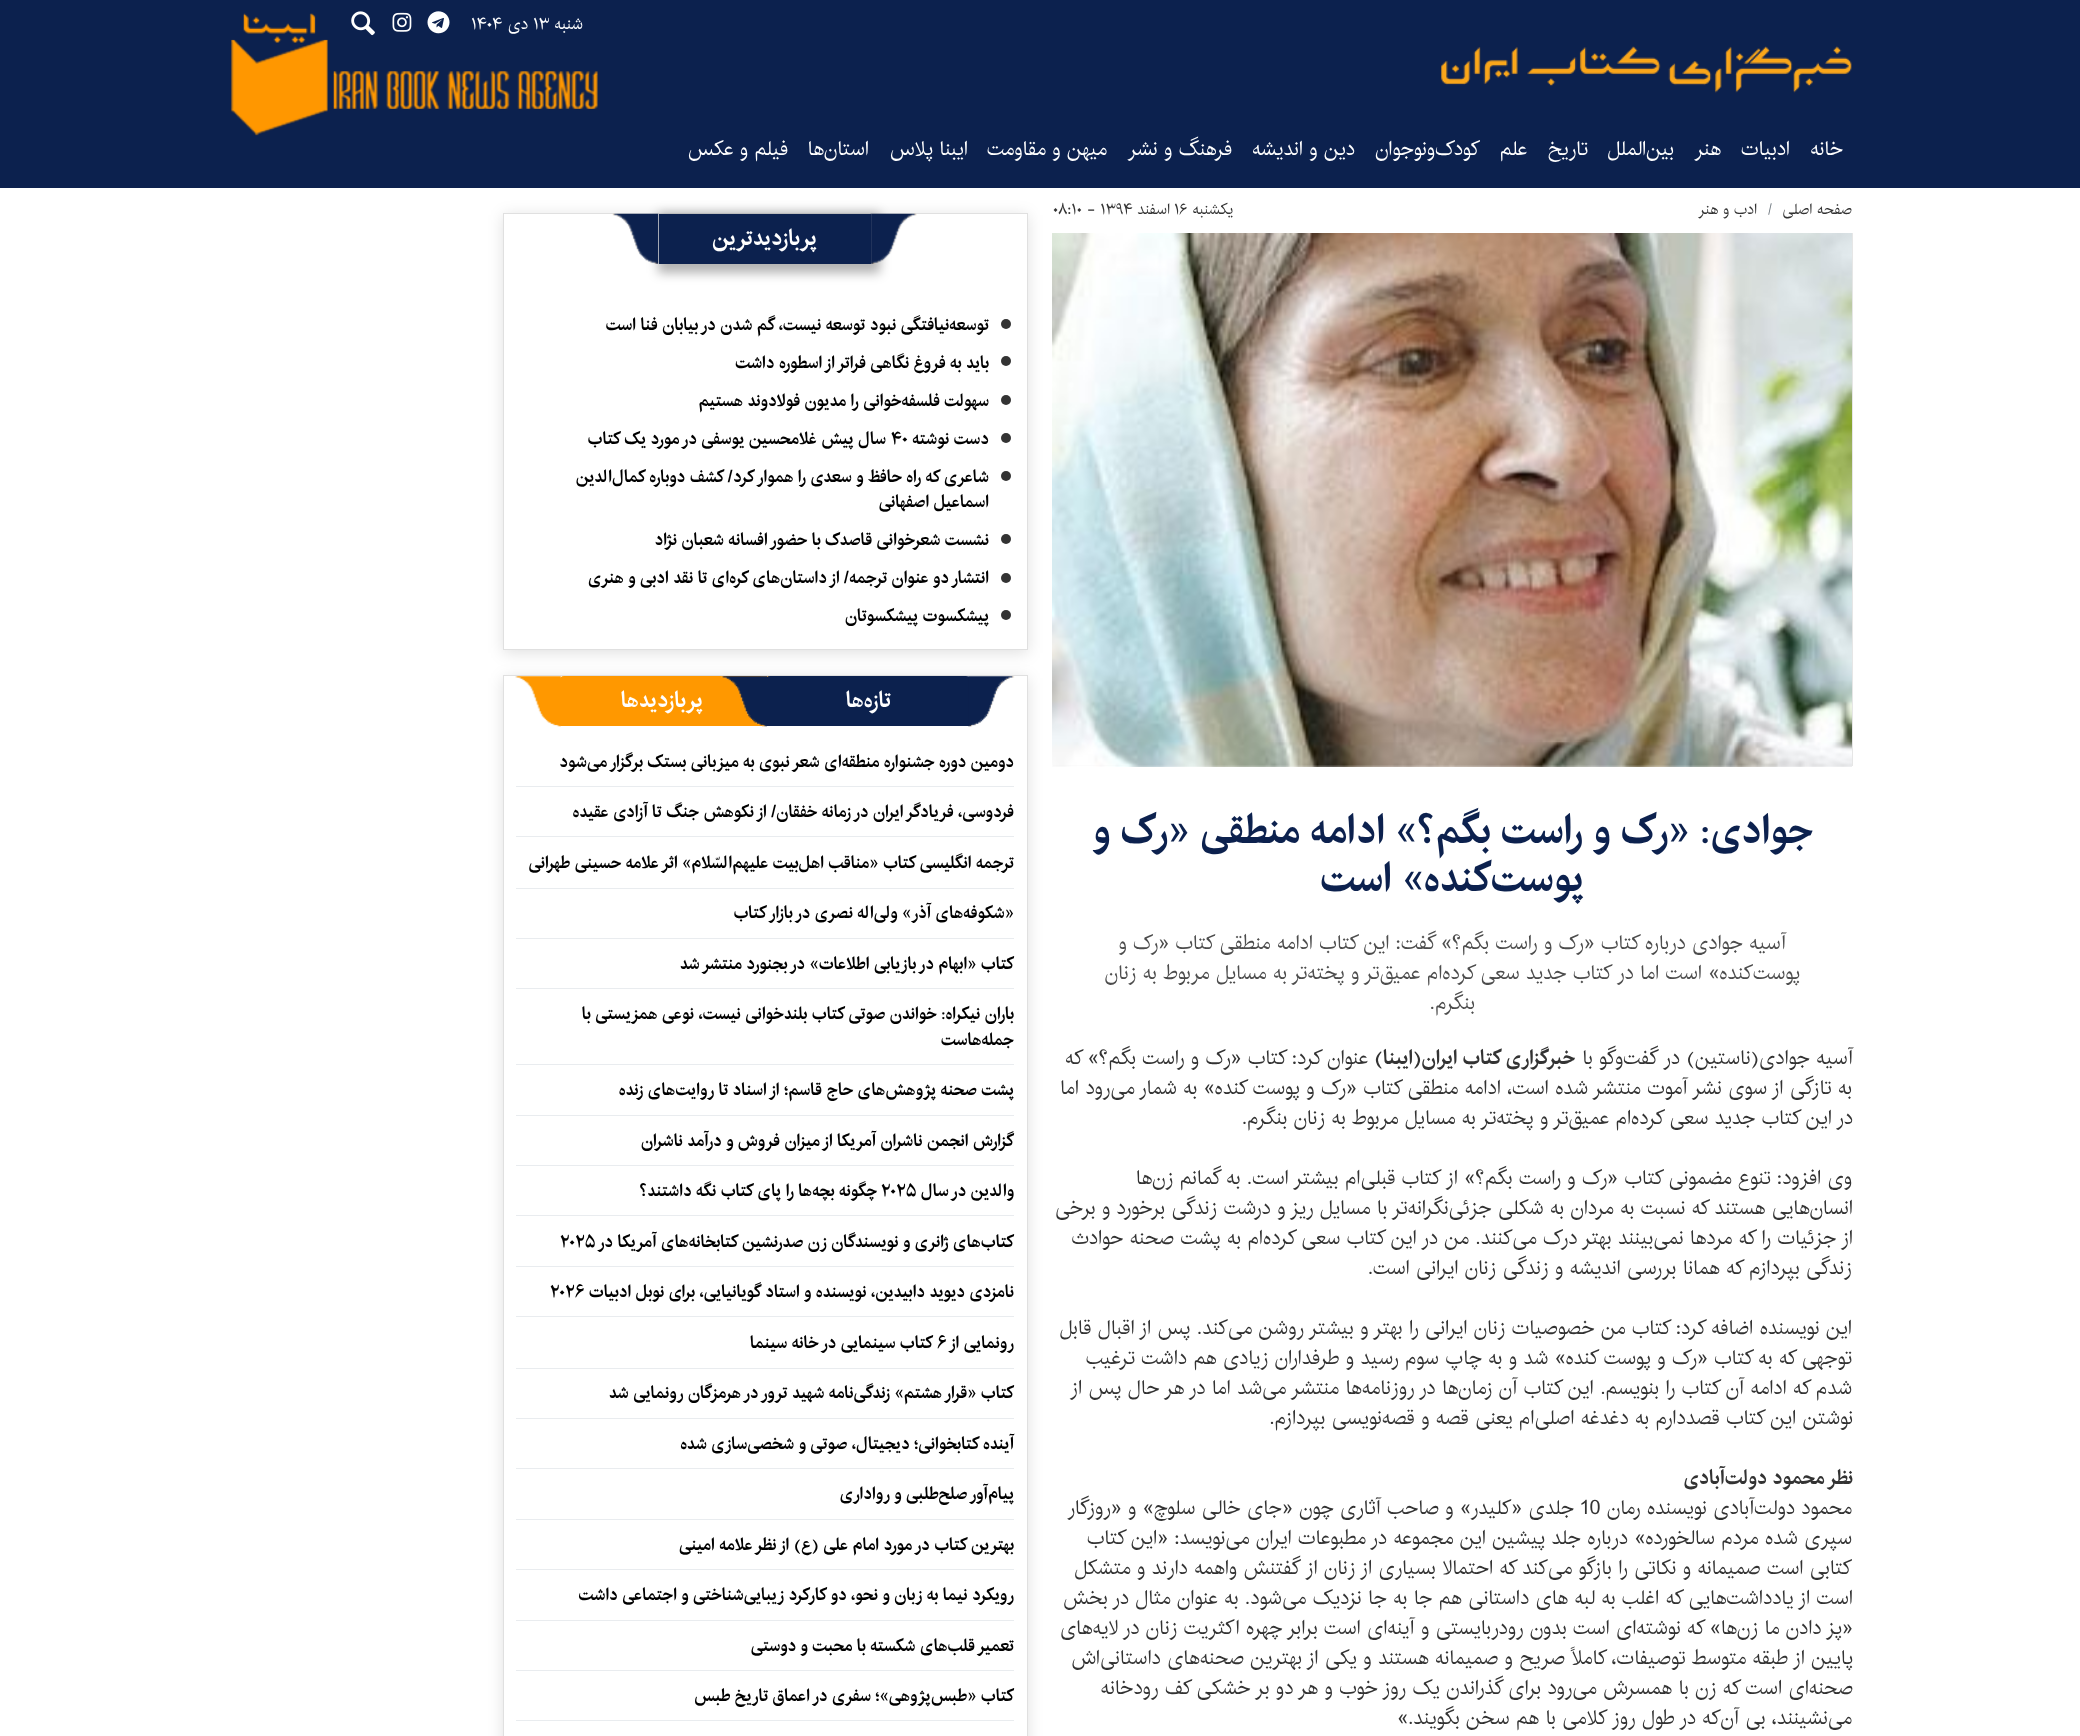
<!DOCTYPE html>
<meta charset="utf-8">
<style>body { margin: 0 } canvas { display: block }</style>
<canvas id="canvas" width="2080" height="1736"></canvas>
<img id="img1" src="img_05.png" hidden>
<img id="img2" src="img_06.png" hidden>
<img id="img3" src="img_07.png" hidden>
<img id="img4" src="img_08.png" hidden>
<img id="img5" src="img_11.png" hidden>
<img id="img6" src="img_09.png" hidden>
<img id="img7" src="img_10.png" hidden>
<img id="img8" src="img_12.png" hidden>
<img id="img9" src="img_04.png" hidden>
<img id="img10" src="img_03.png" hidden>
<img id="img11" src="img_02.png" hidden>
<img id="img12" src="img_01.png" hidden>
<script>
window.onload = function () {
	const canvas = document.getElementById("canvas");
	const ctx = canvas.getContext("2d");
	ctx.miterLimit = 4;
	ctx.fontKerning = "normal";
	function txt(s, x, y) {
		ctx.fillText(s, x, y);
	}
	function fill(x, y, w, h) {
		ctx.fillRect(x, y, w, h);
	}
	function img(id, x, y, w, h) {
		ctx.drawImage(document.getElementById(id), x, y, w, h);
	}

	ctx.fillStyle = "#FFFFFF";
	fill(0, 0, 2080, 1736);
	ctx.fillStyle = "#0C214E";
	fill(0, 0, 2080, 188);
	img("img1", 1441, 46, 411, 47);
	ctx.fillStyle = "#E6E6E6";
	fill(1053, 233, 800, 533);
	img("img2", 1052, 233, 800, 534);
	ctx.save();
	ctx.beginPath();
	ctx.moveTo(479, 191);
	ctx.lineTo(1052, 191);
	ctx.lineTo(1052, 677);
	ctx.lineTo(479, 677);
	ctx.closePath();
	ctx.moveTo(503, 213);
	ctx.lineTo(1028, 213);
	ctx.lineTo(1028, 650);
	ctx.lineTo(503, 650);
	ctx.closePath();
	ctx.clip("evenodd");
	ctx.fillStyle = "rgba(0, 0, 0, 0.12)";
	ctx.filter = "blur(7.5px)";
	ctx.beginPath();
	ctx.rect(503, 215, 525, 438);
	ctx.fill();
	ctx.filter = "none";
	ctx.restore();
	ctx.strokeStyle = "rgba(0, 0, 0, 0.12)";
	ctx.strokeRect(503.5, 213.5, 524, 436);
	ctx.fillStyle = "rgba(0, 0, 0, 0.3)";
	ctx.filter = "blur(5.5px)";
	ctx.beginPath();
	ctx.rect(658, 213, 222, 60);
	ctx.fill();
	ctx.filter = "none";
	ctx.fillStyle = "#0C214E";
	fill(659, 214, 212, 50);
	img("img3", 870, 213, 47, 51);
	img("img4", 612, 213, 47, 51);
	ctx.fillStyle = "#333333";
	ctx.beginPath();
	ctx.arc(1006, 324, 5, 0, Math.PI * 2);
	ctx.fill();
	ctx.beginPath();
	ctx.arc(1006, 361, 5, 0, Math.PI * 2);
	ctx.fill();
	ctx.beginPath();
	ctx.arc(1006, 400, 5, 0, Math.PI * 2);
	ctx.fill();
	ctx.beginPath();
	ctx.arc(1006, 438, 5, 0, Math.PI * 2);
	ctx.fill();
	ctx.beginPath();
	ctx.arc(1006, 476, 5, 0, Math.PI * 2);
	ctx.fill();
	ctx.beginPath();
	ctx.arc(1006, 539, 5, 0, Math.PI * 2);
	ctx.fill();
	ctx.beginPath();
	ctx.arc(1006, 578, 5, 0, Math.PI * 2);
	ctx.fill();
	ctx.beginPath();
	ctx.arc(1006, 615, 5, 0, Math.PI * 2);
	ctx.fill();
	ctx.save();
	ctx.beginPath();
	ctx.moveTo(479, 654);
	ctx.lineTo(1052, 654);
	ctx.lineTo(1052, 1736);
	ctx.lineTo(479, 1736);
	ctx.closePath();
	ctx.moveTo(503, 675);
	ctx.lineTo(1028, 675);
	ctx.lineTo(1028, 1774);
	ctx.lineTo(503, 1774);
	ctx.closePath();
	ctx.clip("evenodd");
	ctx.fillStyle = "rgba(0, 0, 0, 0.12)";
	ctx.filter = "blur(7.5px)";
	ctx.beginPath();
	ctx.rect(503, 678, 525, 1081);
	ctx.fill();
	ctx.filter = "none";
	ctx.restore();
	ctx.strokeRect(503.5, 675.5, 524, 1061);
	ctx.fillStyle = "#FF9800";
	ctx.beginPath();
	ctx.roundRect(559, 676, 206, 50, [5, 5, 0, 0]);
	ctx.fill();
	img("img5", 762, 676, 8, 51);
	ctx.fillStyle = "#0C214E";
	ctx.beginPath();
	ctx.roundRect(765, 676, 206, 50, [5, 5, 0, 0]);
	ctx.fill();
	img("img6", 968, 676, 47, 51);
	img("img7", 720, 676, 47, 51);
	img("img8", 515, 676, 46, 51);
	ctx.fillStyle = "#E9ECEF";
	fill(516, 786, 498, 1);
	fill(516, 836, 498, 1);
	fill(516, 888, 498, 1);
	fill(516, 938, 498, 1);
	fill(516, 988, 498, 1);
	fill(516, 1064, 498, 1);
	fill(516, 1115, 498, 1);
	fill(516, 1165, 498, 1);
	fill(516, 1215, 498, 1);
	fill(516, 1266, 498, 1);
	fill(516, 1316, 498, 1);
	fill(516, 1368, 498, 1);
	fill(516, 1418, 498, 1);
	fill(516, 1468, 498, 1);
	fill(516, 1519, 498, 1);
	fill(516, 1569, 498, 1);
	fill(516, 1620, 498, 1);
	fill(516, 1670, 498, 1);
	fill(516, 1720, 498, 1);
	ctx.direction = "rtl";
	ctx.font = "16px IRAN";
	ctx.fillStyle = "#FFFFFF";
	txt("شنبه", 583, 29);
	ctx.direction = "ltr";
	txt("۱۳", 533, 29);
	ctx.direction = "rtl";
	txt("دی", 528, 29);
	ctx.direction = "ltr";
	txt("۱۴۰۴", 471, 29);
	img("img9", 231, 13, 367, 123);
	img("img10", 351, 11, 24, 25);
	img("img11", 392, 12, 20, 20);
	img("img12", 427, 11, 23, 23);
	ctx.direction = "rtl";
	ctx.font = "20px IRAN";
	txt("خانه", 1843, 155);
	txt("ادبیات", 1790, 155);
	txt("هنر", 1721, 155);
	txt("بین‌الملل", 1674, 155);
	txt("تاریخ‌", 1588, 155);
	txt("علم", 1527, 155);
	txt("کودک‌ونوجوان", 1480, 155);
	txt("دین و اندیشه", 1355, 155);
	txt("فرهنگ و نشر", 1232, 155);
	txt("میهن و مقاومت", 1107, 155);
	txt("ایبنا پلاس", 968, 155);
	txt("استان‌ها", 869, 155);
	txt("فیلم و عکس", 788, 155);
	ctx.font = "15px IRAN";
	ctx.fillStyle = "#333333";
	txt("صفحه اصلی", 1852, 214);
	ctx.direction = "ltr";
	ctx.fillStyle = "#6C757D";
	txt("/", 1767, 214);
	ctx.direction = "rtl";
	ctx.fillStyle = "#333333";
	txt("ادب و هنر", 1757, 214);
	txt("یکشنبه", 1233, 214);
	ctx.direction = "ltr";
	txt("۱۶", 1174, 214);
	ctx.direction = "rtl";
	txt("اسفند", 1170, 214);
	ctx.direction = "ltr";
	txt("۰۸:۱۰ - ۱۳۹۴", 1053, 214);
	ctx.direction = "rtl";
	ctx.font = "bold 40px IRAN";
	ctx.fillStyle = "#0C214E";
	txt("جوادی: «رک و راست بگم؟» ادامه منطقی «رک و", 1813, 843);
	txt("پوست‌کنده» است", 1584, 891);
	ctx.font = "20px IRAN";
	ctx.fillStyle = "#4D4D4D";
	txt("آسیه جوادی درباره کتاب «رک و راست بگم؟» گفت: این کتاب ادامه منطقی کتاب «رک و", 1786, 949);
	txt("پوست‌کنده» است اما در کتاب جدید سعی کرده‌ام عمیق‌تر و پخته‌تر به مسایل مربوط به زنان", 1800, 979);
	txt("بنگرم.", 1475, 1009);
	ctx.fillStyle = "#333333";
	txt("آسیه جوادی(ناستین) در گفت‌وگو با", 1853, 1064);
	ctx.font = "bold 20px IRAN";
	txt("خبرگزاری کتاب ایران(ایبنا)", 1575, 1064);
	ctx.font = "20px IRAN";
	txt("عنوان کرد: کتاب «رک و راست بگم؟» که", 1368, 1064);
	txt("به تازگی از سوی نشر آموت منتشر شده است، ادامه منطقی کتاب «رک و پوست کنده» به شمار می‌رود اما", 1852, 1094);
	txt("در این کتاب جدید سعی کرده‌ام عمیق‌تر و پخته‌تر به مسایل مربوط به زنان بنگرم.", 1853, 1124);
	txt("وی افزود: تنوع مضمونی کتاب «رک و راست بگم؟» از کتاب قبلی‌ام بیشتر است. به گمانم زن‌ها", 1852, 1184);
	txt("انسان‌هایی هستند که نسبت به مردان به شکلی جزئی‌نگرانه‌تر با مسایل ریز و درشت زندگی برخورد و برخی", 1853, 1214);
	txt("از جزئیات را که مردها نمی‌بینند بهتر درک می‌کنند. من در این کتاب سعی کرده‌ام به پشت صحنه حوادث", 1853, 1244);
	txt("زندگی بپردازم که همانا بررسی اندیشه و زندگی زنان ایرانی است.", 1852, 1274);
	txt("این نویسنده اضافه کرد: کتاب من خصوصیات زنان ایرانی را بهتر و بیشتر روشن می‌کند. پس از اقبال قابل", 1852, 1334);
	txt("توجهی که به کتاب «رک و پوست کنده» شد و به چاپ سوم رسید و طرفداران زیادی هم داشت ترغیب", 1852, 1364);
	txt("شدم که ادامه آن کتاب را بنویسم. این کتاب آن زمان‌ها در روزنامه‌ها منتشر می‌شد اما در هر حال پس از", 1852, 1394);
	txt("نوشتن این کتاب قصددارم به دغدغه اصلی‌ام یعنی قصه و قصه‌نویسی بپردازم.", 1853, 1424);
	ctx.font = "bold 20px IRAN";
	txt("نظر محمود دولت‌آبادی", 1853, 1484);
	ctx.font = "20px IRAN";
	txt("محمود دولت‌آبادی نویسنده رمان", 1852, 1514);
	ctx.direction = "ltr";
	txt("10", 1580, 1514);
	ctx.direction = "rtl";
	txt("جلدی «کلیدر» و صاحب آثاری چون «جای خالی سلوچ» و «روزگار", 1574, 1514);
	txt("سپری شده مردم سالخورده» درباره جلد پیشین این مجموعه در مطبوعات ایران می‌نویسد: «این کتاب", 1852, 1544);
	txt("کتابی است صمیمانه و نکاتی را بازگو می‌کند که احتمالا بسیاری از زنان از گفتنش واهمه دارند و متشکل", 1852, 1574);
	txt("است از یادداشت‌هایی که اغلب به لبه ‌های داستانی هم جا به جا نزدیک می‌شود. به عنوان مثال در بخش", 1853, 1604);
	txt("«پز دادن ما زن‌ها» که نوشته‌ای است بدون رودربایستی و آینه‌ای است برابر چهره اکثریت زنان در لایه‌های", 1853, 1634);
	txt("پایین از طبقه متوسط توصیفات، کاملاً صریح و صمیمانه هستند و یکی از بهترین صحنه‌های داستانی‌اش", 1853, 1664);
	txt("صحنه‌ای است که زن با همسرش می‌رود برای گذراندن یک روز خوب و هر دو بر خشکی کف رودخانه", 1853, 1694);
	txt("می‌نشینند، بی آن‌که در طول روز کلامی با هم سخن بگویند.»", 1852, 1724);
	ctx.font = "bold 22px IRAN";
	ctx.fillStyle = "#FFFFFF";
	txt("پربازدیدترین", 817, 245);
	ctx.font = "bold 17px IRAN";
	ctx.fillStyle = "#000000";
	txt("توسعه‌نیافتگی نبود توسعه نیست، گم شدن در بیابان فنا است", 989, 330);
	txt("باید به فروغ نگاهی فراتر از اسطوره داشت", 989, 368);
	txt("سهولت فلسفه‌خوانی را مدیون فولادوند هستیم", 989, 406);
	txt("دست نوشته", 989, 444);
	ctx.direction = "ltr";
	txt("۴۰", 891, 444);
	ctx.direction = "rtl";
	txt("سال پیش غلامحسین یوسفی در مورد یک کتاب", 886, 444);
	txt("شاعری که راه حافظ و سعدی را هموار کرد/ کشف دوباره کمال‌الدین", 989, 482);
	txt("اسماعیل اصفهانی", 989, 507);
	txt("نشست شعرخوانی قاصدک با حضور افسانه شعبان نژاد", 989, 545);
	txt("انتشار دو عنوان ترجمه/ از داستان‌های کره‌ای تا نقد ادبی‌ و هنری", 989, 583);
	txt("پیشکسوت پیشکسوتان", 989, 621);
	ctx.font = "bold 22px IRAN";
	ctx.fillStyle = "#FFFFFF";
	txt("تازه‌ها", 891, 707);
	txt("پربازدیدها", 703, 707);
	ctx.font = "bold 17px IRAN";
	ctx.fillStyle = "#000000";
	txt("دومین دوره جشنواره منطقه‌ای شعر نبوی به میزبانی بستک برگزار می‌شود", 1014, 767);
	txt("فردوسی، فریادگر ایران در زمانه خفقان/ از نکوهش جنگ تا آزادی عقیده", 1014, 817);
	txt("ترجمه انگلیسی کتاب «مناقب اهل‌بیت علیهم‌السّلام» اثر علامه حسینی طهرانی", 1014, 868);
	txt("«شکوفه‌های آذر» ولی‌اله نصری در بازار کتاب", 1014, 918);
	txt("کتاب «ابهام در بازیابی اطلاعات» در بجنورد منتشر شد", 1014, 969);
	txt("باران نیکراه: خواندن صوتی کتاب بلندخوانی نیست، نوعی همزیستی با", 1014, 1019);
	txt("جمله‌هاست", 1014, 1045);
	txt("پشت صحنه پژوهش‌های حاج قاسم؛ از اسناد تا روایت‌های زنده", 1014, 1095);
	txt("گزارش انجمن ناشران آمریکا از میزان فروش و درآمد ناشران", 1014, 1146);
	txt("والدین در سال", 1014, 1196);
	ctx.direction = "ltr";
	txt("۲۰۲۵", 881, 1196);
	ctx.direction = "rtl";
	txt("چگونه بچه‌ها را پای کتاب نگه داشتند؟", 877, 1196);
	txt("کتاب‌های ژانری و نویسندگان زن صدرنشین کتابخانه‌های آمریکا در", 1014, 1247);
	ctx.direction = "ltr";
	txt("۲۰۲۵", 560, 1247);
	ctx.direction = "rtl";
	txt("نامزدی دیوید دابیدین، نویسنده و استاد گویانیایی، برای نوبل ادبیات", 1014, 1297);
	ctx.direction = "ltr";
	txt("۲۰۲۶", 550, 1297);
	ctx.direction = "rtl";
	txt("رونمایی از", 1014, 1348);
	ctx.direction = "ltr";
	txt("۶", 937, 1348);
	ctx.direction = "rtl";
	txt("کتاب سینمایی در خانه سینما", 933, 1348);
	txt("کتاب «قرار هشتم» زندگی‌نامه شهید ترور در هرمزگان رونمایی شد", 1014, 1398);
	txt("آینده کتابخوانی؛ دیجیتال، صوتی و شخصی‌سازی شده", 1014, 1449);
	txt("پیام‌آور صلح‌طلبی و رواداری", 1014, 1499);
	txt("بهترین کتاب در مورد امام علی (ع) از نظر علامه امینی", 1014, 1550);
	txt("رویکرد نیما به زبان و نحو، دو کارکرد زیبایی‌شناختی و اجتماعی داشت", 1014, 1600);
	txt("تعمیر قلب‌های شکسته با محبت و دوستی", 1014, 1651);
	txt("کتاب «طبس‌پژوهی»؛ سفری در اعماق تاریخ طبس", 1014, 1701);
};
</script>
